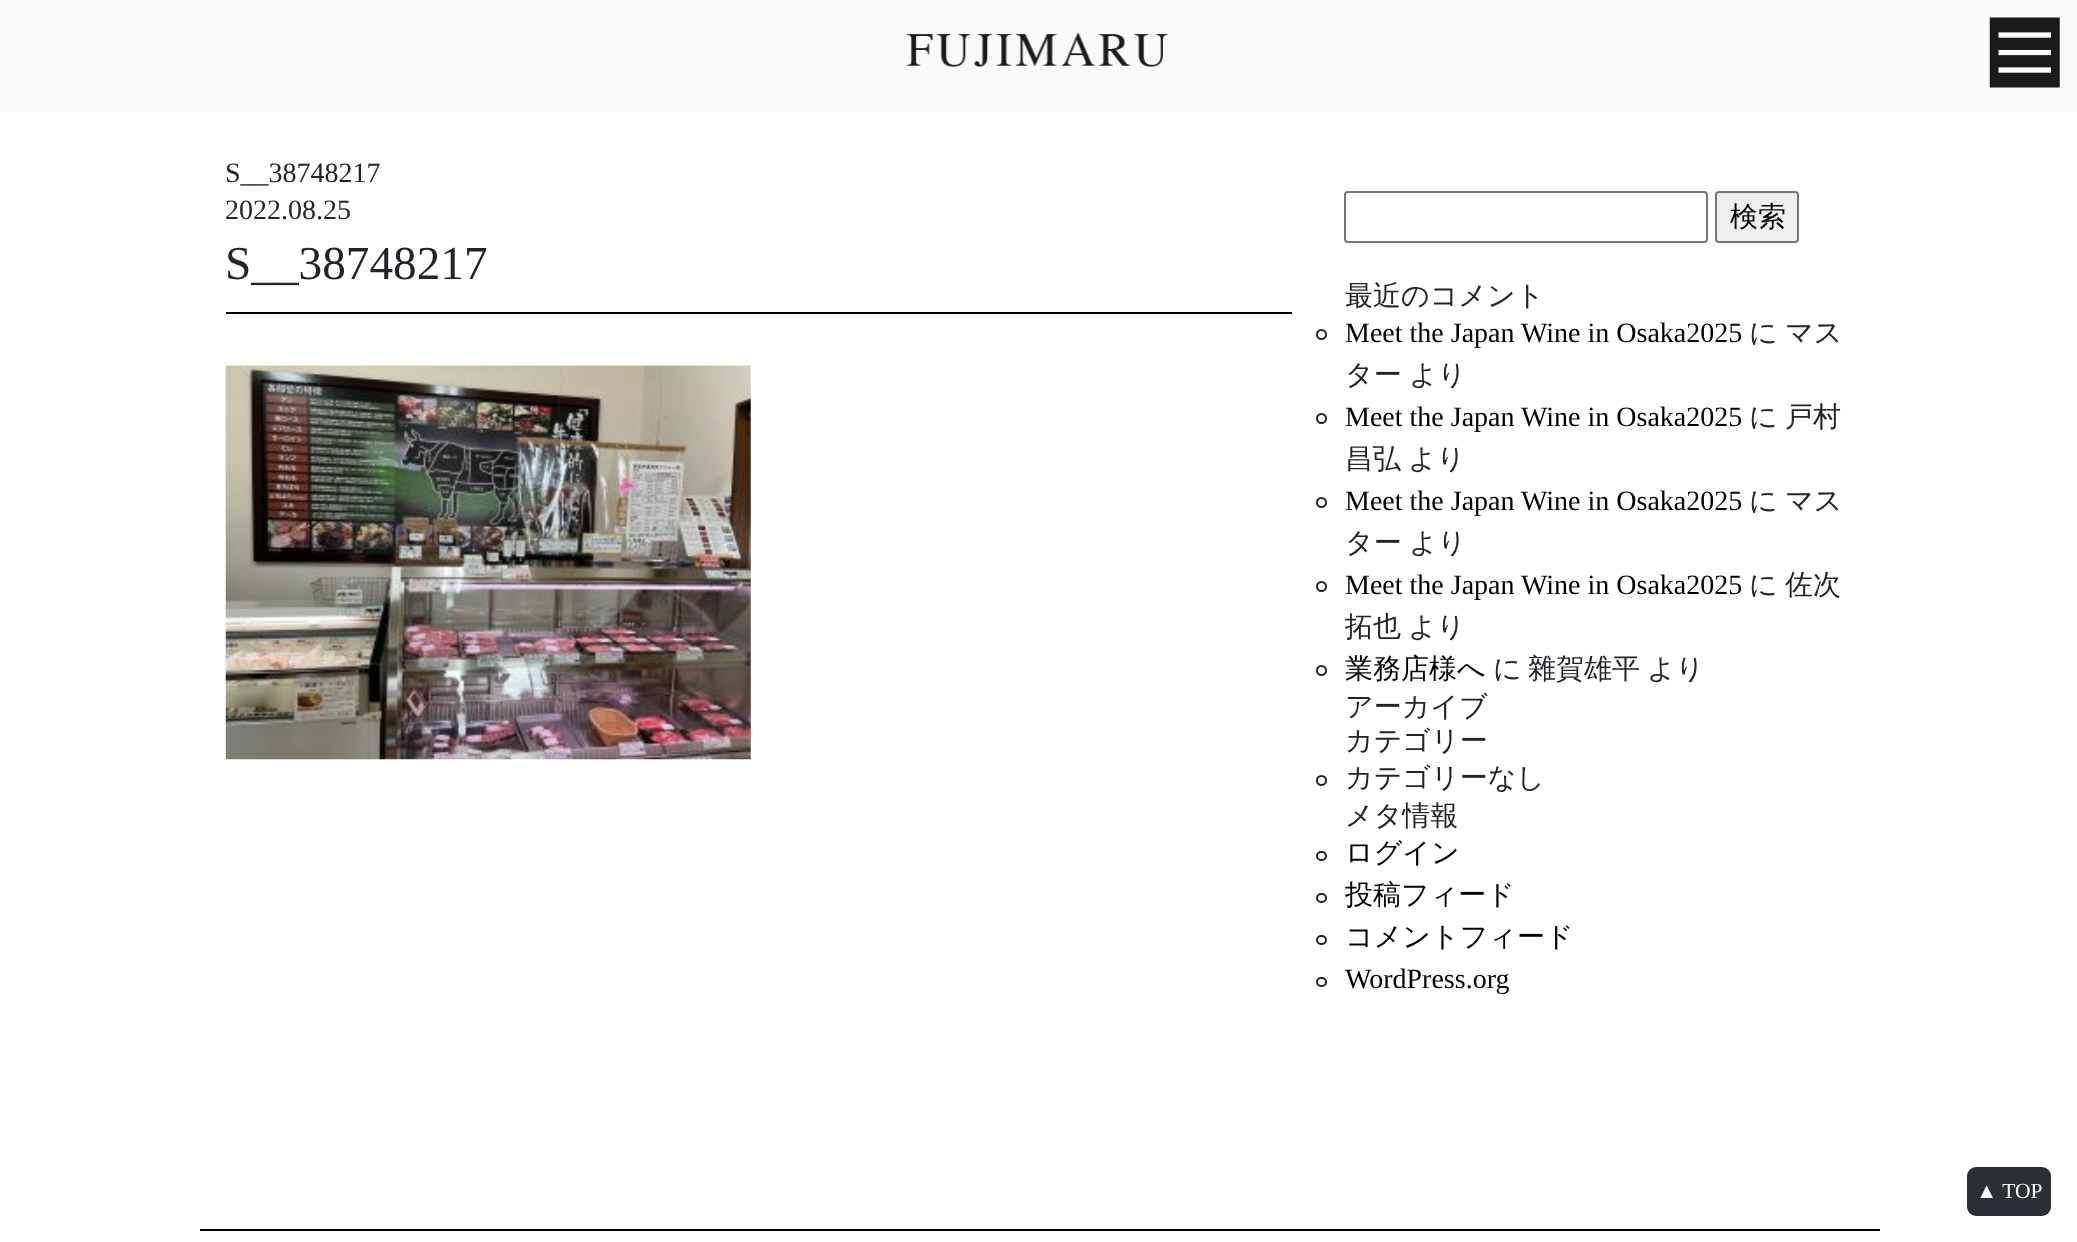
<!DOCTYPE html>
<meta charset="utf-8">
<style>body { margin: 0 } canvas { display: block }</style>
<canvas id="canvas" width="2077" height="1242"></canvas>
<img id="img1" src="img_01.png" hidden>
<img id="img2" src="img_02.png" hidden>
<img id="img3" src="img_03.png" hidden>
<script>
window.onload = function () {
	const canvas = document.getElementById("canvas");
	const ctx = canvas.getContext("2d");
	ctx.miterLimit = 4;
	ctx.fontKerning = "normal";
	function txt(s, x, y) {
		ctx.fillText(s, x, y);
	}
	function fill(x, y, w, h) {
		ctx.fillRect(x, y, w, h);
	}
	function round(x, y, w, h, r) {
		ctx.beginPath();
		ctx.roundRect(x, y, w, h, r);
		ctx.fill();
	}
	function img(id, x, y, w, h) {
		ctx.drawImage(document.getElementById(id), x, y, w, h);
	}

	ctx.fillStyle = "#FFFFFF";
	fill(0, 0, 2077, 1242);
	ctx.fillStyle = "#F9FAFB";
	fill(0, 0, 2077, 112);
	img("img1", 906, 33, 262, 34);
	img("img2", 1989, 17, 71, 71);
	ctx.fillStyle = "#000000";
	fill(226, 312, 1066, 2);
	img("img3", 225, 365, 526, 395);
	ctx.beginPath();
	ctx.roundRect(1345, 192, 362, 50, 3);
	ctx.strokeStyle = "#767676";
	ctx.lineWidth = 2;
	ctx.stroke();
	ctx.fillStyle = "#EFEFEF";
	ctx.beginPath();
	ctx.roundRect(1716, 192, 82, 50, 3);
	ctx.fill();
	ctx.stroke();
	ctx.beginPath();
	ctx.arc(1321.5, 334.5, 4.5, 0, Math.PI * 2);
	ctx.strokeStyle = "#212529";
	ctx.stroke();
	ctx.beginPath();
	ctx.arc(1321.5, 418.5, 4.5, 0, Math.PI * 2);
	ctx.stroke();
	ctx.beginPath();
	ctx.arc(1321.5, 502.5, 4.5, 0, Math.PI * 2);
	ctx.stroke();
	ctx.beginPath();
	ctx.arc(1321.5, 586.5, 4.5, 0, Math.PI * 2);
	ctx.stroke();
	ctx.beginPath();
	ctx.arc(1321.5, 670.5, 4.5, 0, Math.PI * 2);
	ctx.stroke();
	ctx.beginPath();
	ctx.arc(1321.5, 780.5, 4.5, 0, Math.PI * 2);
	ctx.stroke();
	ctx.beginPath();
	ctx.roundRect(1317, 852, 9, 8, 4);
	ctx.stroke();
	ctx.beginPath();
	ctx.roundRect(1317, 894, 9, 8, 4);
	ctx.stroke();
	ctx.beginPath();
	ctx.roundRect(1317, 936, 9, 8, 4);
	ctx.stroke();
	ctx.beginPath();
	ctx.roundRect(1317, 978, 9, 8, 4);
	ctx.stroke();
	ctx.fillStyle = "#2B2E34";
	round(1967, 1167, 84, 49, 9);
	ctx.fillStyle = "#000000";
	fill(200, 1229, 1680, 2);
	ctx.font = "28px Liberation Serif";
	ctx.fillStyle = "#212529";
	txt("S__38748217", 225, 182);
	txt("2022.08.25", 225, 219);
	ctx.font = "47.25px Liberation Serif";
	txt("S__38748217", 225, 279);
	ctx.font = "500 28px WenQuanYi Zen Hei";
	ctx.fillStyle = "#000000";
	txt("検索", 1730, 226);
	ctx.fillStyle = "#212529";
	txt("最近のコメント", 1345, 305);
	ctx.font = "28px Liberation Serif";
	ctx.fillStyle = "#000000";
	txt("Meet the Japan Wine in Osaka2025", 1345, 342);
	ctx.font = "500 28px WenQuanYi Zen Hei";
	ctx.fillStyle = "#212529";
	txt("に", 1749, 342);
	txt("マス", 1785, 342);
	txt("ター", 1345, 384);
	txt("より", 1409, 384);
	ctx.font = "28px Liberation Serif";
	ctx.fillStyle = "#000000";
	txt("Meet the Japan Wine in Osaka2025", 1345, 426);
	ctx.font = "500 28px WenQuanYi Zen Hei";
	ctx.fillStyle = "#212529";
	txt("に", 1749, 426);
	txt("戸村", 1785, 426);
	txt("昌弘", 1345, 468);
	txt("より", 1408, 468);
	ctx.font = "28px Liberation Serif";
	ctx.fillStyle = "#000000";
	txt("Meet the Japan Wine in Osaka2025", 1345, 510);
	ctx.font = "500 28px WenQuanYi Zen Hei";
	ctx.fillStyle = "#212529";
	txt("に", 1749, 510);
	txt("マス", 1785, 510);
	txt("ター", 1345, 552);
	txt("より", 1409, 552);
	ctx.font = "28px Liberation Serif";
	ctx.fillStyle = "#000000";
	txt("Meet the Japan Wine in Osaka2025", 1345, 594);
	ctx.font = "500 28px WenQuanYi Zen Hei";
	ctx.fillStyle = "#212529";
	txt("に", 1749, 594);
	txt("佐次", 1785, 594);
	txt("拓也", 1345, 636);
	txt("より", 1408, 636);
	ctx.fillStyle = "#000000";
	txt("業務店様へ", 1345, 678);
	ctx.fillStyle = "#212529";
	txt("に", 1493, 678);
	txt("雜賀雄平", 1528, 678);
	txt("より", 1647, 678);
	txt("アーカイブ", 1345, 716);
	txt("カテゴリー", 1345, 750);
	txt("カテゴリーなし", 1345, 787);
	txt("メタ情報", 1345, 825);
	ctx.fillStyle = "#000000";
	txt("ログイン", 1345, 862);
	txt("投稿フィード", 1345, 904);
	txt("コメントフィード", 1345, 946);
	ctx.font = "28px Liberation Serif";
	txt("WordPress.org", 1345, 988);
	ctx.font = "21.5px Liberation Serif";
	ctx.fillStyle = "#FFFFFF";
	txt("▲ TOP", 1976, 1198);
};
</script>
